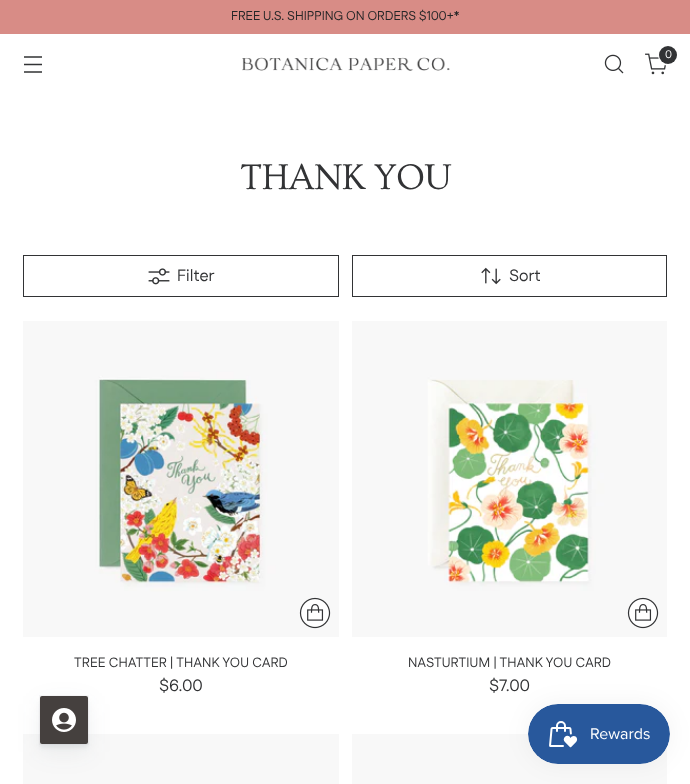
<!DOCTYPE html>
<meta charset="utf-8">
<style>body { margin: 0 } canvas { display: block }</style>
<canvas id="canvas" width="690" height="784"></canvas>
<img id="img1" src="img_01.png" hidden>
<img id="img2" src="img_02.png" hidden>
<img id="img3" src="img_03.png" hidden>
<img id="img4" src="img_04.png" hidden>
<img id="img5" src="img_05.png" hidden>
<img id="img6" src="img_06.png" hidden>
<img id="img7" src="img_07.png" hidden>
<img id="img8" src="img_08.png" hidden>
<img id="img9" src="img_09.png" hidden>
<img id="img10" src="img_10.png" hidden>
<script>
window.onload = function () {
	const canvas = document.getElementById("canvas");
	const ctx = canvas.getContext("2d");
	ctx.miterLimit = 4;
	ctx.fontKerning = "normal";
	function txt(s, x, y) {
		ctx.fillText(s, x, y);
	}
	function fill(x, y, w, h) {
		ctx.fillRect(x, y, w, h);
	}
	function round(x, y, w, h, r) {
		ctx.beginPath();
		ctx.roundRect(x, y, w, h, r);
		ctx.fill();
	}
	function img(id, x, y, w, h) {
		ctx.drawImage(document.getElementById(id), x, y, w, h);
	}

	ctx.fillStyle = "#FFFFFF";
	fill(0, 0, 690, 784);
	ctx.fillStyle = "#D88C86";
	fill(0, 0, 690, 34);
	img("img1", 604, 54, 20, 20);
	img("img2", 645, 53, 22, 22);
	ctx.beginPath();
	ctx.arc(668.5, 55.5, 9.5, 0, Math.PI * 2);
	ctx.strokeStyle = "#FFFFFF";
	ctx.lineWidth = 2;
	ctx.stroke();
	ctx.fillStyle = "#323335";
	ctx.beginPath();
	ctx.arc(668, 55, 9, 0, Math.PI * 2);
	ctx.fill();
	ctx.beginPath();
	ctx.moveTo(24, 64.5);
	ctx.lineTo(42, 64.5);
	ctx.moveTo(24, 57);
	ctx.lineTo(42, 57);
	ctx.moveTo(24, 72);
	ctx.lineTo(42, 72);
	ctx.strokeStyle = "#323335";
	ctx.lineWidth = 1.3;
	ctx.stroke();
	img("img3", 242, 57, 208, 14);
	ctx.lineWidth = 1;
	ctx.strokeRect(23.5, 255.5, 315, 41);
	img("img4", 148, 268, 22, 17);
	ctx.strokeRect(352.5, 255.5, 314, 41);
	img("img5", 481, 267, 20, 18);
	img("img6", 23, 321, 316, 316);
	img("img7", 299, 597, 32, 32);
	img("img8", 352, 321, 315, 316);
	img("img7", 627, 597, 32, 32);
	ctx.fillStyle = "#F8F8F8";
	fill(23, 734, 316, 50);
	fill(352, 734, 315, 50);
	ctx.fillStyle = "rgba(55, 63, 71, 0.08)";
	ctx.filter = "blur(12px)";
	ctx.beginPath();
	ctx.roundRect(40, 704, 48, 48, 2);
	ctx.fill();
	ctx.filter = "none";
	ctx.filter = "blur(2px)";
	ctx.beginPath();
	ctx.roundRect(40, 700, 48, 48, 2);
	ctx.fill();
	ctx.filter = "none";
	ctx.strokeStyle = "rgba(55, 63, 71, 0.04)";
	ctx.strokeRect(39.5, 695.5, 49, 49);
	ctx.fillStyle = "#45403E";
	round(40, 696, 48, 48, 2);
	img("img9", 52, 708, 24, 24);
	ctx.fillStyle = "rgba(0, 0, 0, 0.05)";
	ctx.filter = "blur(12.5px)";
	ctx.beginPath();
	ctx.roundRect(528, 704, 142, 60, 30);
	ctx.fill();
	ctx.filter = "none";
	img("img10", 528, 704, 142, 60);
	ctx.font = "12.75px Fustat";
	ctx.fillStyle = "#242526";
	txt("FREE U.S. SHIPPING ON ORDERS $100+*", 231, 20);
	ctx.font = "11px Fustat";
	ctx.fillStyle = "#FFFFFF";
	txt("0", 665, 58);
	ctx.letterSpacing = "-0.75px";
	ctx.font = "37.5px Ovo";
	ctx.fillStyle = "#323335";
	txt("THANK YOU", 240, 189);
	ctx.letterSpacing = "0px";
	ctx.font = "16.5px Fustat";
	txt("Filter", 177, 281);
	txt("Sort", 509, 281);
	ctx.letterSpacing = "0.15px";
	ctx.font = "13.5px Fustat";
	txt("TREE CHATTER | THANK YOU CARD", 74, 667);
	ctx.letterSpacing = "0px";
	ctx.font = "16.5px Fustat";
	txt("$6.00", 159, 691);
	ctx.letterSpacing = "0.15px";
	ctx.font = "13.5px Fustat";
	txt("NASTURTIUM | THANK YOU CARD", 408, 667);
	ctx.letterSpacing = "0px";
	ctx.font = "16.5px Fustat";
	txt("$7.00", 489, 691);
};
</script>
